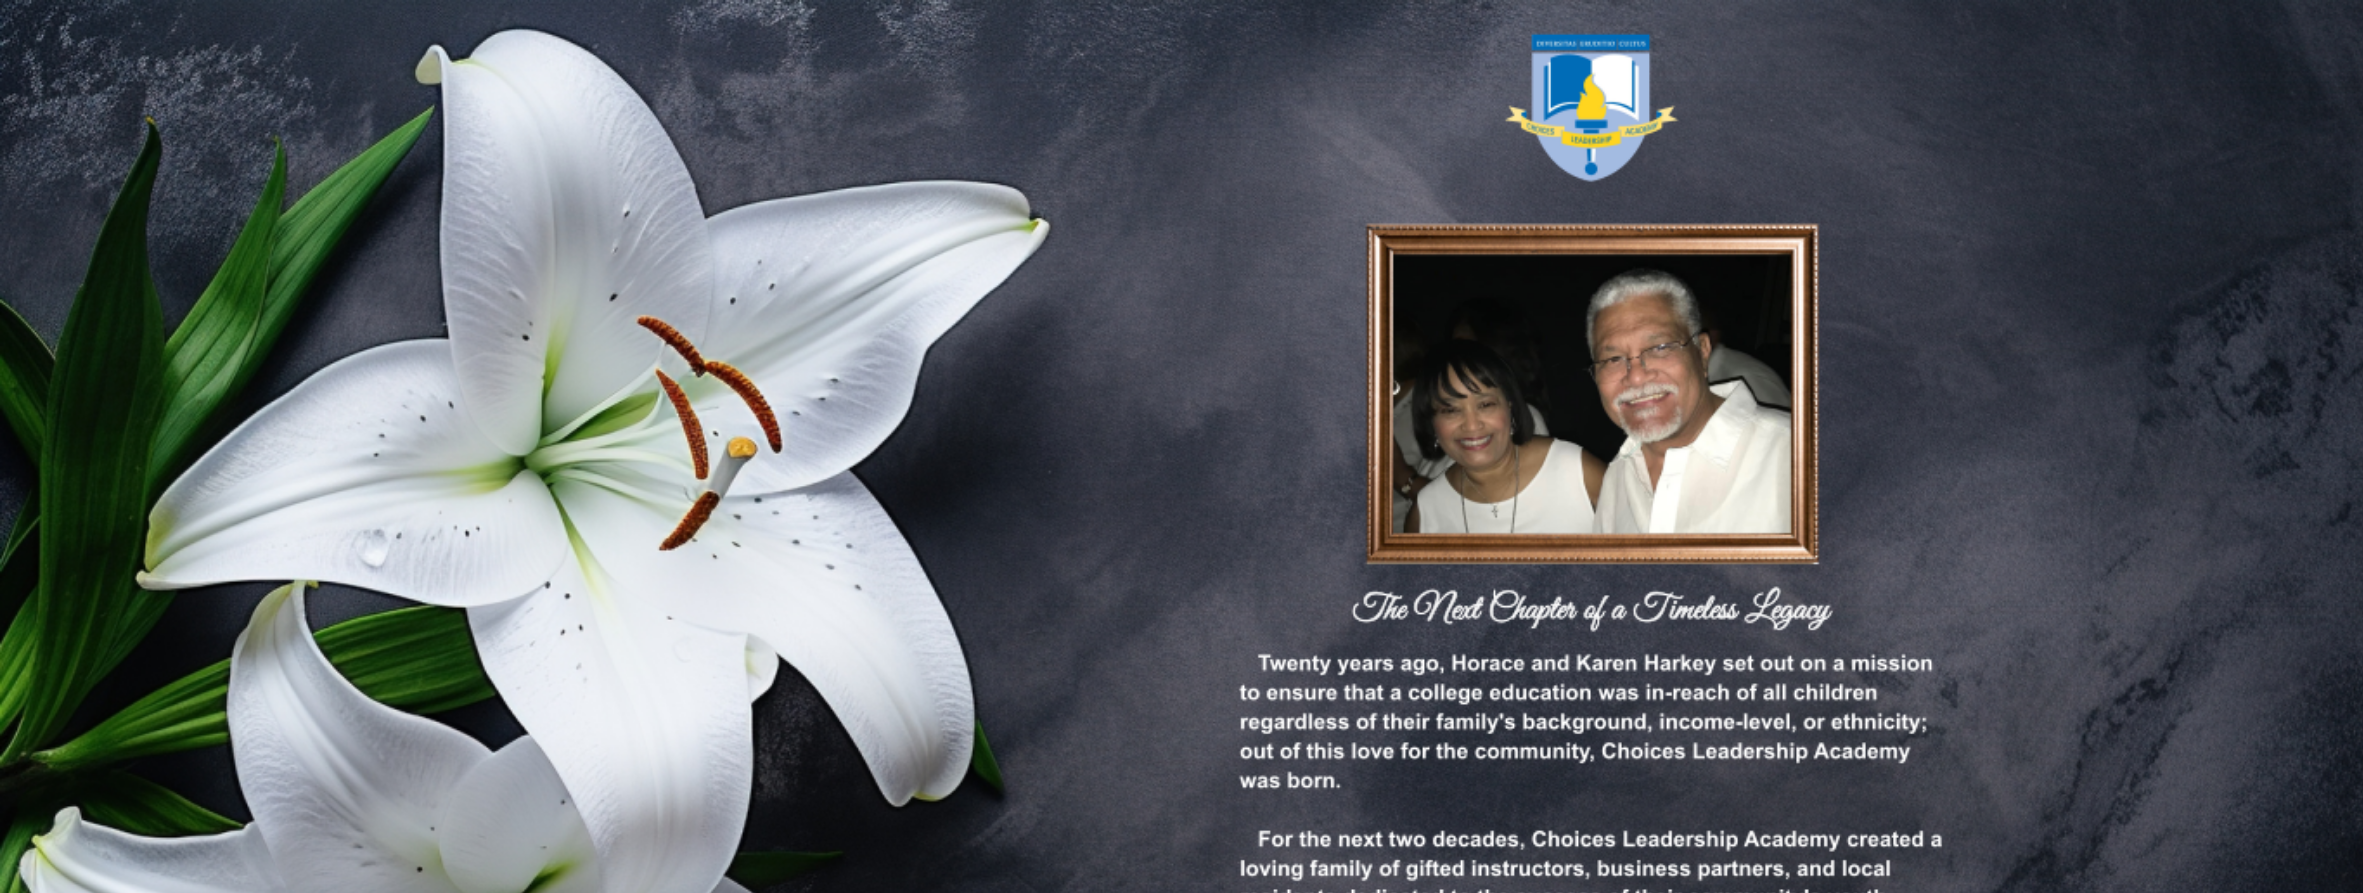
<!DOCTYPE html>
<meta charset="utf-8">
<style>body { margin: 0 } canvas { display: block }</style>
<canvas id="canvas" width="2363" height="893"></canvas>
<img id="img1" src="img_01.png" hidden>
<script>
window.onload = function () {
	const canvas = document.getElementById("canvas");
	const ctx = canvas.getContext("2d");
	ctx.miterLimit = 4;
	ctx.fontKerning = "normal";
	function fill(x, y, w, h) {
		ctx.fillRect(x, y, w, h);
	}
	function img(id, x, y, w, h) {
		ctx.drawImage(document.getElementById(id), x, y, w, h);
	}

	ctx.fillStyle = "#FFFFFF";
	fill(0, 0, 2363, 893);
	img("img1", 0, 0, 2363, 893);
};
</script>
